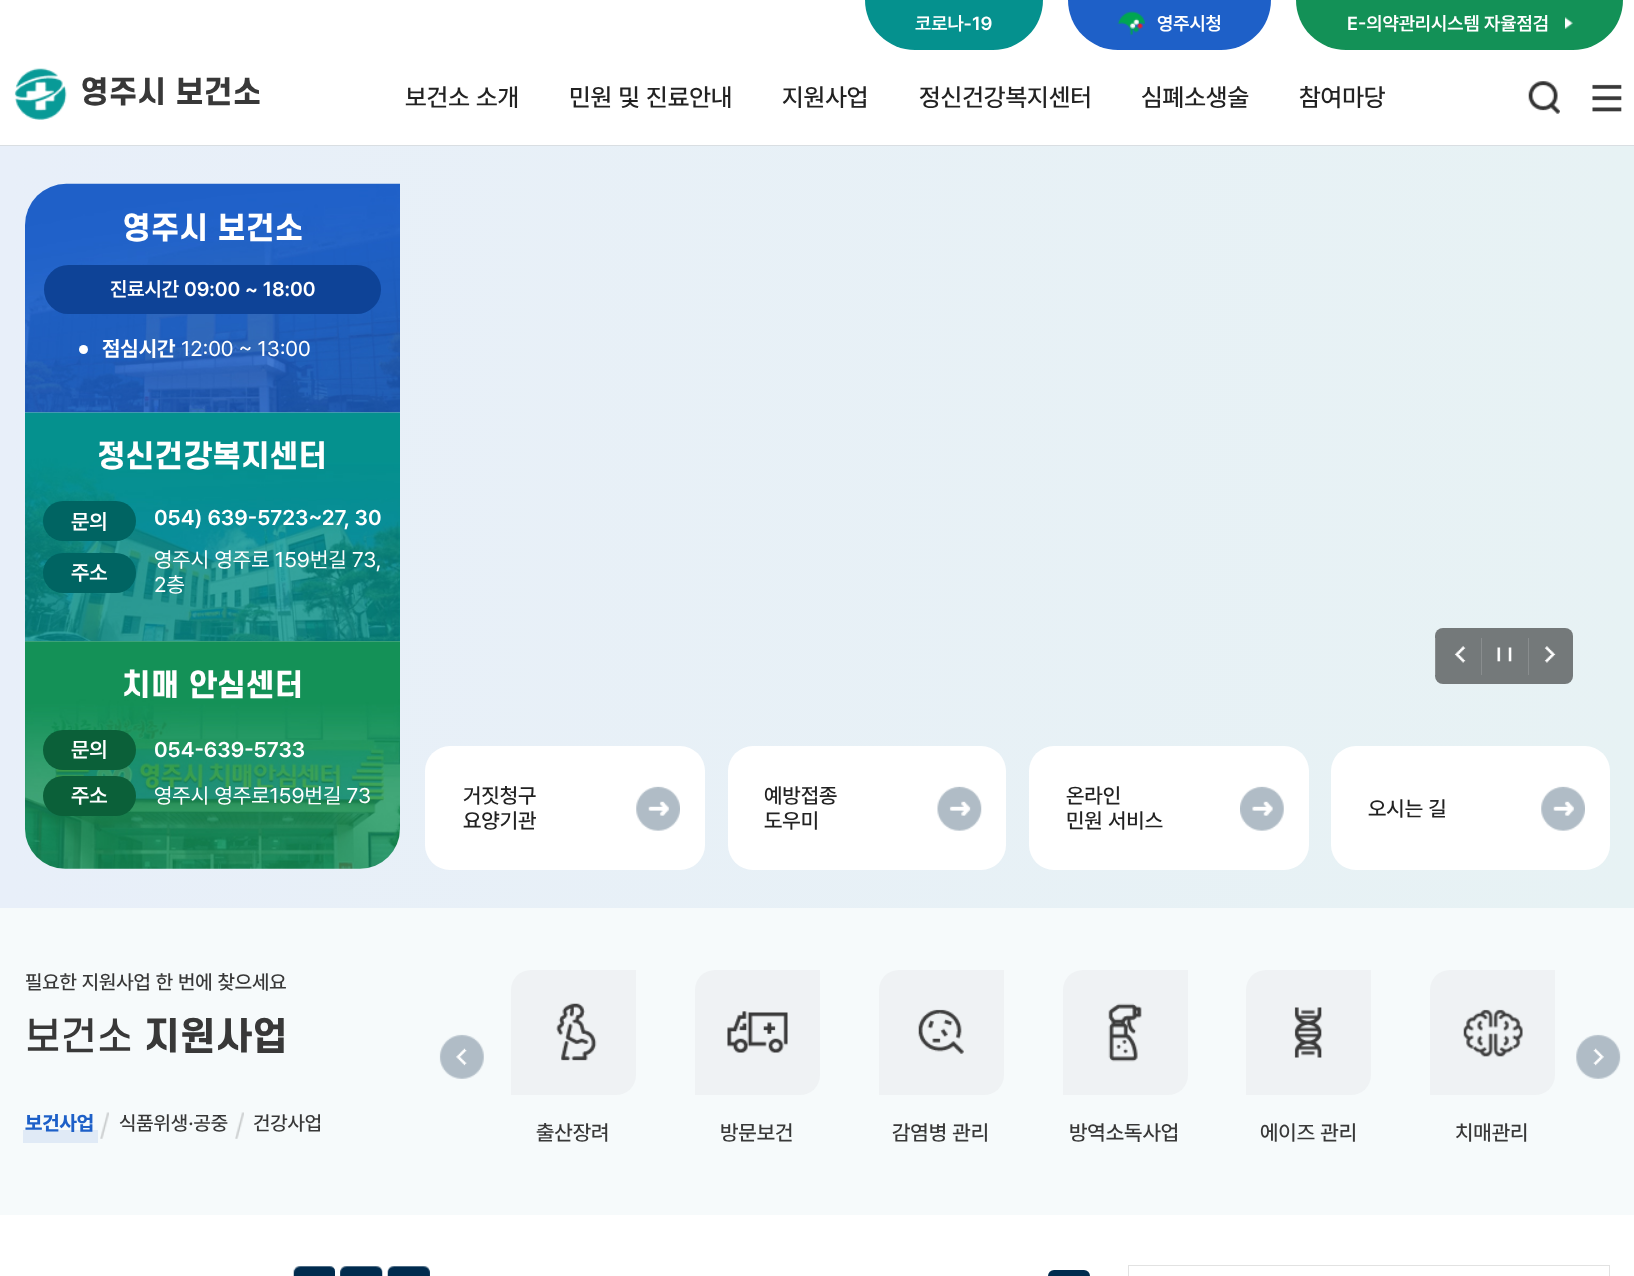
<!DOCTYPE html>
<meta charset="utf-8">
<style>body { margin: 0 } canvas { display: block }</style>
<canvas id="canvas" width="1634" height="1276"></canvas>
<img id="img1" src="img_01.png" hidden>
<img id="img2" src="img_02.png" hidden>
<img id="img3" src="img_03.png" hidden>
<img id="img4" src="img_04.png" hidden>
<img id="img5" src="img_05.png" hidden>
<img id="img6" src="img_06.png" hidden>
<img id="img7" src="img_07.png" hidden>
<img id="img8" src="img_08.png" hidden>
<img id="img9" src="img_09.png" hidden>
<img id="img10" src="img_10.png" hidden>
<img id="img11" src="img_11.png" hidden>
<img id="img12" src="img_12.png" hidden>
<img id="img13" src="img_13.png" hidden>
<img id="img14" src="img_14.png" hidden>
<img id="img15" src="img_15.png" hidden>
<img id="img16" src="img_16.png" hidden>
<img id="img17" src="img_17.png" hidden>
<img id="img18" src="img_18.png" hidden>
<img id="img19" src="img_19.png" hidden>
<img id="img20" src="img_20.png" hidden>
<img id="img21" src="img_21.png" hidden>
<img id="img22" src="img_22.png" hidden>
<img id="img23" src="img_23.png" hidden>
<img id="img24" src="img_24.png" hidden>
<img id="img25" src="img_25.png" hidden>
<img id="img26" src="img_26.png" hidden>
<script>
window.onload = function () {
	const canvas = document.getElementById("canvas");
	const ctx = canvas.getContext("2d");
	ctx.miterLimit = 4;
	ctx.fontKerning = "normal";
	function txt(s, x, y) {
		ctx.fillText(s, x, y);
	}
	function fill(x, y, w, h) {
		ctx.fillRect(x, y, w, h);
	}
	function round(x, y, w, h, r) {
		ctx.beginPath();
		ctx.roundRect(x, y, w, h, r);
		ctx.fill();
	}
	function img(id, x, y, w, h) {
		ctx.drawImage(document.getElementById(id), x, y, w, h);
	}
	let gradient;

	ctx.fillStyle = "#FFFFFF";
	fill(0, 0, 1634, 1276);
	ctx.fillStyle = "#D9DEE2";
	fill(0, 145, 1634, 1);
	ctx.fillStyle = "#05918E";
	ctx.beginPath();
	ctx.roundRect(865, 0, 178, 50, [0, 0, 50, 50]);
	ctx.fill();
	ctx.fillStyle = "#1E60C8";
	ctx.beginPath();
	ctx.roundRect(1068, 0, 203, 50, [0, 0, 50, 50]);
	ctx.fill();
	img("img1", 1117, 11, 28, 24);
	ctx.fillStyle = "#139157";
	ctx.beginPath();
	ctx.roundRect(1296, 0, 327, 50, [0, 0, 50, 50]);
	ctx.fill();
	img("img2", 1565, 17, 8, 12);
	img("img3", 14, 68, 53, 52);
	img("img4", 1528, 81, 32, 33);
	img("img5", 1592, 84, 30, 28);
	gradient = ctx.createLinearGradient(0, 527, 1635, 527);
	gradient.addColorStop(0, "#E8EFF9");
	gradient.addColorStop(1, "#E7F2F4");
	ctx.fillStyle = gradient;
	fill(0, 146, 1634, 762);
	img("img6", 25, 183, 375, 230);
	ctx.fillStyle = "#0E4397";
	round(44, 265, 337, 49, 24.5);
	ctx.fillStyle = "#FFFFFF";
	ctx.beginPath();
	ctx.arc(83.5, 349.5, 4.5, 0, Math.PI * 2);
	ctx.fill();
	img("img7", 25, 412, 375, 230);
	ctx.fillStyle = "#006462";
	round(43, 501, 93, 40, 20);
	round(43, 553, 93, 40, 20);
	img("img8", 25, 641, 375, 228);
	ctx.fillStyle = "#0B6039";
	round(43, 730, 93, 40, 20);
	round(43, 776, 93, 40, 20);
	ctx.fillStyle = "#74797A";
	round(1435, 628, 138, 56, 8);
	ctx.fillStyle = "#898D8E";
	fill(1435, 638, 1, 37);
	img("img9", 1454, 646, 12, 17);
	fill(1481, 638, 1, 37);
	img("img10", 1497, 647, 15, 15);
	fill(1528, 638, 1, 37);
	img("img11", 1544, 646, 12, 17);
	ctx.fillStyle = "#FFFFFF";
	round(425, 746, 280, 124, 25);
	img("img12", 636, 786, 44, 45);
	round(728, 746, 278, 124, 25);
	img("img13", 937, 786, 45, 45);
	round(1029, 746, 280, 124, 25);
	img("img14", 1240, 786, 44, 45);
	round(1331, 746, 279, 124, 25);
	img("img12", 1541, 786, 44, 45);
	ctx.fillStyle = "#F6FAFB";
	fill(0, 908, 1634, 307);
	ctx.fillStyle = "#E0EAF6";
	fill(23, 1130, 75, 13);
	img("img15", 100, 1112, 9, 27);
	img("img15", 235, 1112, 9, 27);
	img("img16", 439, 1034, 45, 45);
	img("img17", 1576, 1034, 45, 45);
	ctx.fillStyle = "#EFF2F4";
	ctx.beginPath();
	ctx.roundRect(511, 970, 125, 125, [20, 0, 20, 0]);
	ctx.fill();
	img("img18", 556, 1003, 41, 58);
	ctx.beginPath();
	ctx.roundRect(695, 970, 125, 125, [20, 0, 20, 0]);
	ctx.fill();
	img("img19", 727, 1011, 61, 42);
	ctx.beginPath();
	ctx.roundRect(879, 970, 125, 125, [20, 0, 20, 0]);
	ctx.fill();
	img("img20", 918, 1009, 46, 45);
	ctx.beginPath();
	ctx.roundRect(1063, 970, 125, 125, [20, 0, 20, 0]);
	ctx.fill();
	img("img21", 1108, 1003, 34, 59);
	ctx.beginPath();
	ctx.roundRect(1246, 970, 125, 125, [20, 0, 20, 0]);
	ctx.fill();
	img("img22", 1294, 1007, 28, 51);
	ctx.beginPath();
	ctx.roundRect(1430, 970, 125, 125, [20, 0, 20, 0]);
	ctx.fill();
	img("img23", 1463, 1009, 60, 48);
	img("img24", 293, 1266, 42, 10);
	img("img25", 340, 1266, 43, 10);
	img("img26", 387, 1266, 43, 10);
	ctx.fillStyle = "#002B4E";
	round(1048, 1270, 42, 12, 6);
	ctx.strokeStyle = "#E2E2E2";
	ctx.strokeRect(1128.5, 1265.5, 481, 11);
	ctx.font = "600 18.75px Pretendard";
	ctx.fillStyle = "#FFFFFF";
	txt("코로나-19", 915, 30);
	txt("영주시청", 1157, 30);
	txt("E-의약관리시스템 자율점검", 1347, 30);
	ctx.font = "800 30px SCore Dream";
	ctx.fillStyle = "#383838";
	txt("영주시 보건소", 80, 103);
	ctx.font = "500 25px Pretendard";
	ctx.fillStyle = "#222222";
	txt("보건소 소개", 405, 106);
	txt("민원 및 진료안내", 569, 106);
	txt("지원사업", 782, 106);
	txt("정신건강복지센터", 919, 106);
	txt("심폐소생술", 1141, 106);
	txt("참여마당", 1299, 106);
	ctx.font = "800 30px SCore Dream";
	ctx.fillStyle = "#FFFFFF";
	txt("영주시 보건소", 122, 239);
	ctx.font = "600 20px Pretendard";
	txt("진료시간 09:00 ~ 18:00", 110, 296);
	ctx.font = "bold 21.25px Pretendard";
	txt("점심시간", 102, 356);
	ctx.font = "21.25px Pretendard";
	txt("12:00 ~ 13:00", 181, 356);
	ctx.font = "800 30px SCore Dream";
	txt("정신건강복지센터", 97, 467);
	ctx.font = "600 21.25px Pretendard";
	txt("문의", 71, 529);
	txt("054) 639-5723~27, 30", 154, 525);
	txt("주소", 71, 580);
	ctx.font = "21.25px Pretendard";
	txt("영주시 영주로 159번길 73,", 154, 567);
	txt("2층", 154, 592);
	ctx.font = "800 30px SCore Dream";
	txt("치매 안심센터", 122, 696);
	ctx.font = "600 21.25px Pretendard";
	txt("문의", 71, 757);
	txt("054-639-5733", 154, 757);
	txt("주소", 71, 803);
	ctx.font = "21.25px Pretendard";
	txt("영주시 영주로159번길 73", 154, 803);
	ctx.font = "500 21.25px Pretendard";
	ctx.fillStyle = "#222222";
	txt("거짓청구", 463, 803);
	txt("요양기관", 463, 828);
	txt("예방접종", 764, 803);
	txt("도우미", 764, 828);
	txt("온라인", 1066, 803);
	txt("민원 서비스", 1066, 828);
	txt("오시는 길", 1368, 816);
	ctx.font = "500 20px Pretendard";
	ctx.fillStyle = "#383838";
	txt("필요한 지원사업 한 번에 찾으세요", 25, 989);
	ctx.font = "500 37.5px SCore Dream";
	txt("보건소", 25, 1050);
	ctx.font = "800 37.5px SCore Dream";
	txt("지원사업", 144, 1050);
	ctx.font = "800 20px Pretendard";
	ctx.fillStyle = "#1E60C8";
	txt("보건사업", 25, 1130);
	ctx.font = "500 20px Pretendard";
	ctx.fillStyle = "#383838";
	txt("식품위생·공중", 119, 1130);
	txt("건강사업", 253, 1130);
	ctx.font = "500 21.25px Pretendard";
	txt("출산장려", 536, 1140);
	txt("방문보건", 720, 1140);
	txt("감염병 관리", 892, 1140);
	txt("방역소독사업", 1069, 1140);
	txt("에이즈 관리", 1260, 1140);
	txt("치매관리", 1455, 1140);
};
</script>
